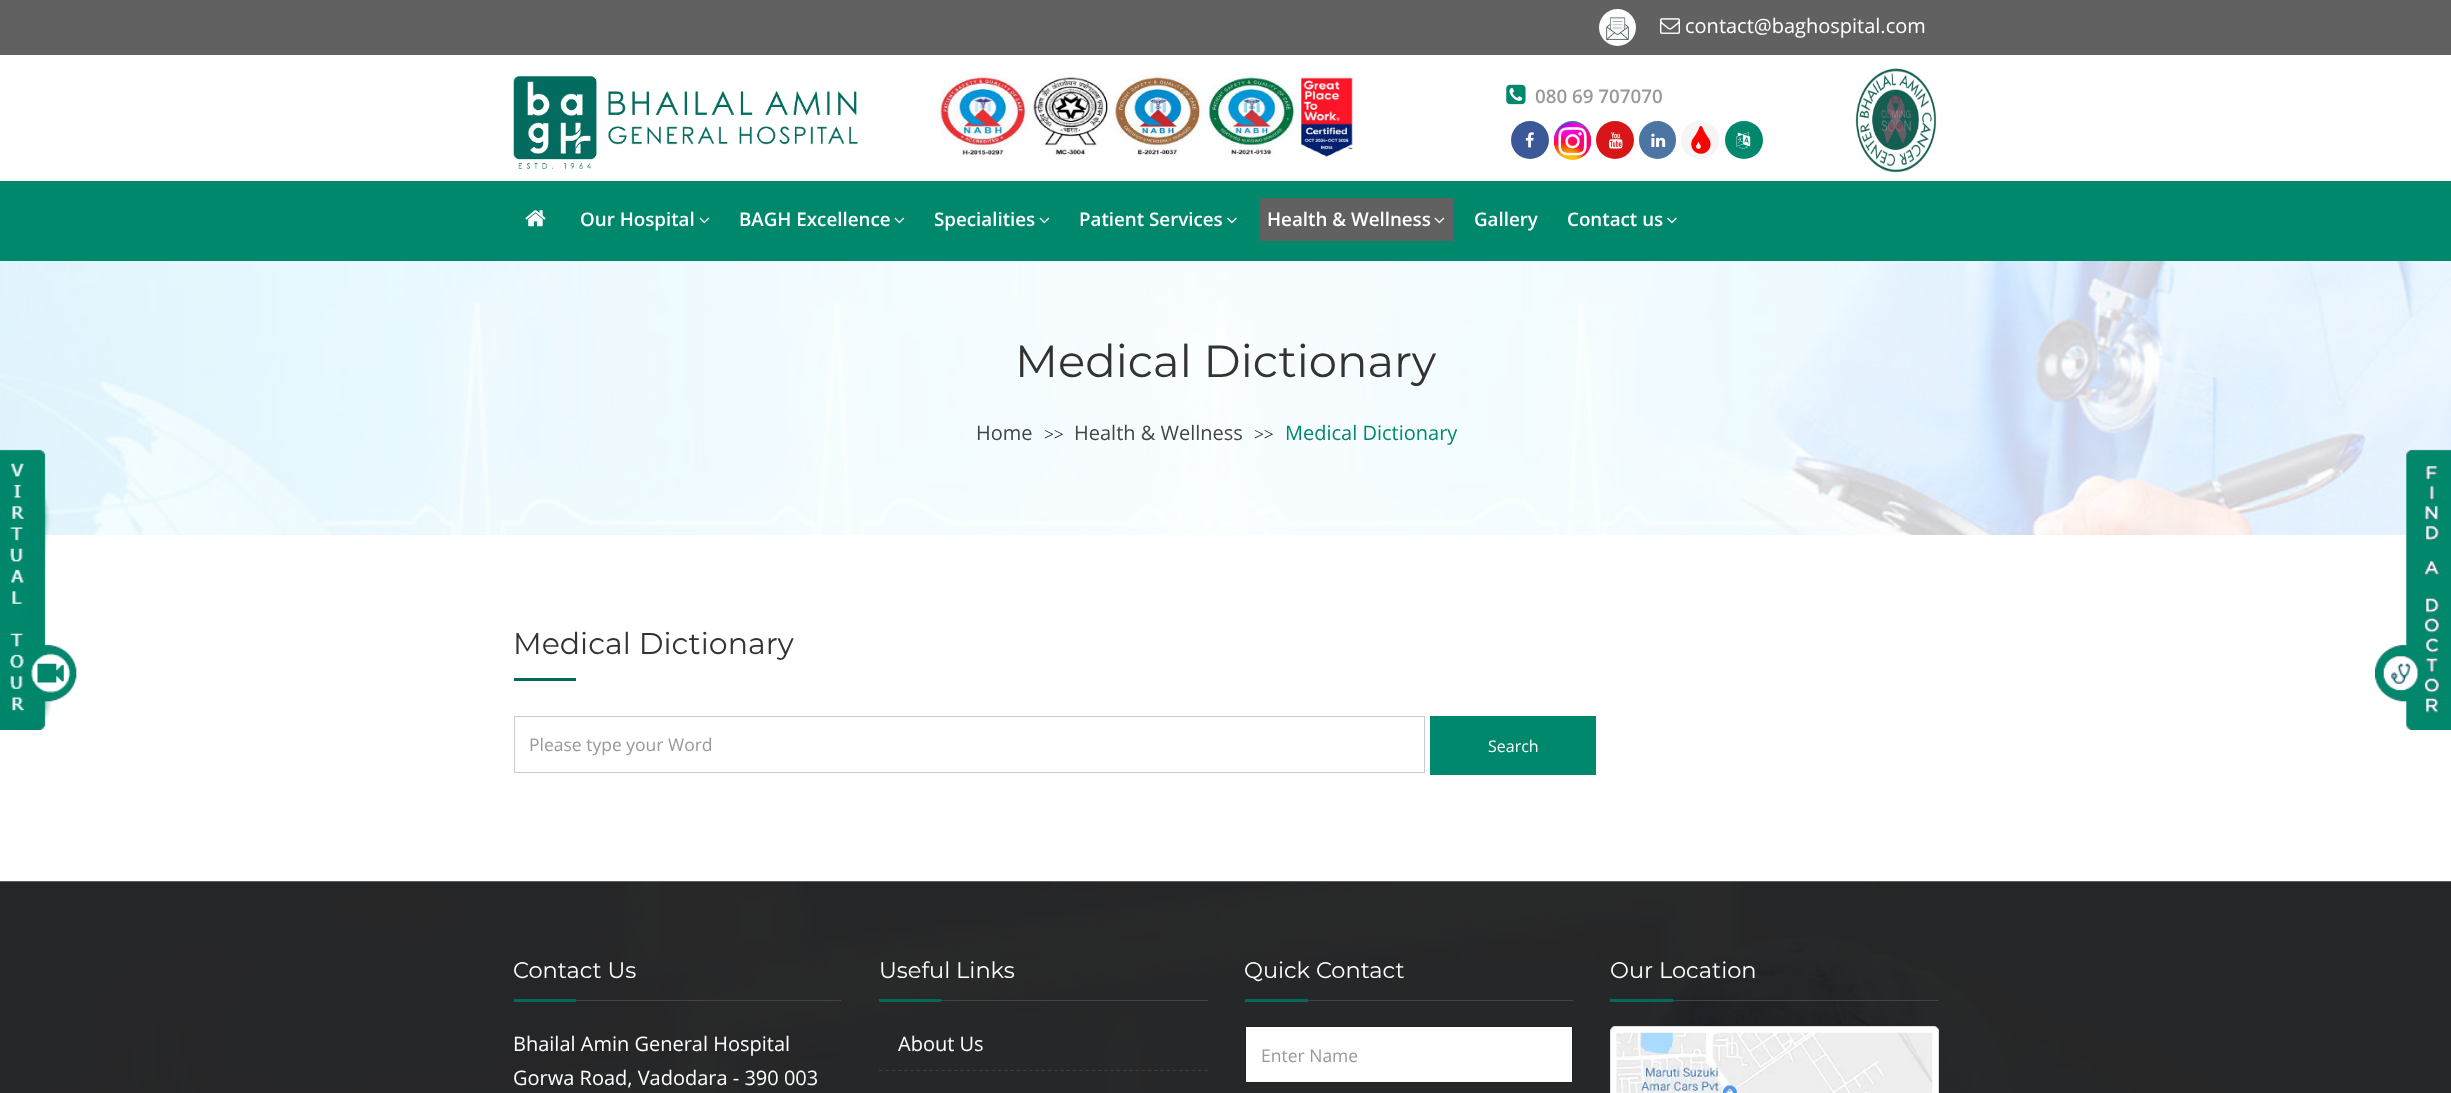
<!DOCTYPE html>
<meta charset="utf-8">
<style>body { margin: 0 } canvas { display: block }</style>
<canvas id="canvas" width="2451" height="1093"></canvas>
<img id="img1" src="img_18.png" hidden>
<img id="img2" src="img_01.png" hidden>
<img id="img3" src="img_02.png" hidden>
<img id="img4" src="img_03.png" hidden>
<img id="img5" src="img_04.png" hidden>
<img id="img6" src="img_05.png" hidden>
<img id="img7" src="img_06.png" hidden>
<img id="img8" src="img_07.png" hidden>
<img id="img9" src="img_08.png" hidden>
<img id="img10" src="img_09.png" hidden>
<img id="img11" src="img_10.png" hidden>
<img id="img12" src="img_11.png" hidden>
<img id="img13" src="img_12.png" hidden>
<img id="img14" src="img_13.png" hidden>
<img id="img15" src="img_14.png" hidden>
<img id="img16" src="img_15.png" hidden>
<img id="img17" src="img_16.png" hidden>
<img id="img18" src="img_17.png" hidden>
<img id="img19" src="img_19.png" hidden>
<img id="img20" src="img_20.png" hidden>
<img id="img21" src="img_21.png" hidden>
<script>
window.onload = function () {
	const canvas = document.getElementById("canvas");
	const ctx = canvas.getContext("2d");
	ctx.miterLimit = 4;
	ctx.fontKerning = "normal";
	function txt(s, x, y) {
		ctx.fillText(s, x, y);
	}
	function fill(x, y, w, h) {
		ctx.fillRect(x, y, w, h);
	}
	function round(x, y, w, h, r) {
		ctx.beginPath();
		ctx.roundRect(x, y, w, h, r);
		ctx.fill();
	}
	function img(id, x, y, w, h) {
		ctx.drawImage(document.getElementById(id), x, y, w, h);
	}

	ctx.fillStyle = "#FFFFFF";
	fill(0, 0, 2451, 1093);
	img("img1", 0, 261, 2451, 274);
	img("img2", 0, 449, 77, 281);
	ctx.fillStyle = "#616161";
	fill(0, 0, 2451, 55);
	ctx.fillStyle = "#FEFEFE";
	ctx.beginPath();
	ctx.arc(1617.5, 27.5, 18.5, 0, Math.PI * 2);
	ctx.fill();
	img("img3", 1606, 17, 23, 23);
	img("img4", 1660, 18, 20, 16);
	img("img5", 513, 76, 345, 93);
	img("img6", 936, 73, 419, 84);
	img("img7", 1506, 84, 20, 21);
	ctx.fillStyle = "#3B5998";
	ctx.beginPath();
	ctx.arc(1530, 140, 19, 0, Math.PI * 2);
	ctx.fill();
	img("img8", 1525, 132, 9, 16);
	ctx.fillStyle = "#3F729B";
	round(1554, 121, 37, 38, 18.5);
	img("img9", 1553, 122, 39, 38);
	ctx.fillStyle = "#D71619";
	ctx.beginPath();
	ctx.arc(1615, 140, 19, 0, Math.PI * 2);
	ctx.fill();
	img("img10", 1609, 132, 14, 17);
	ctx.fillStyle = "#4C75A3";
	round(1639, 121, 37, 38, 18.5);
	img("img11", 1651, 133, 15, 14);
	ctx.fillStyle = "#F5F5F5";
	ctx.beginPath();
	ctx.arc(1700, 140, 19, 0, Math.PI * 2);
	ctx.fill();
	img("img12", 1691, 126, 20, 28);
	ctx.fillStyle = "#00886D";
	ctx.beginPath();
	ctx.arc(1744, 140, 19, 0, Math.PI * 2);
	ctx.fill();
	img("img13", 1736, 132, 15, 17);
	img("img14", 1855, 68, 82, 105);
	fill(0, 181, 2451, 80);
	img("img15", 525, 210, 21, 17);
	img("img16", 699, 217, 11, 7);
	img("img16", 894, 217, 11, 7);
	img("img16", 1039, 217, 11, 7);
	img("img17", 1227, 217, 10, 7);
	ctx.fillStyle = "#616161";
	fill(1259, 198, 194, 43);
	img("img18", 1434, 217, 11, 7);
	img("img17", 1667, 217, 10, 7);
	ctx.fillStyle = "#02695B";
	fill(514, 678, 62, 3);
	ctx.strokeStyle = "#CCCCCC";
	ctx.strokeRect(514.5, 716.5, 910, 56);
	ctx.fillStyle = "#00886D";
	fill(1430, 716, 166, 59);
	img("img19", 0, 881, 2451, 212);
	ctx.fillStyle = "#444444";
	fill(576, 1000, 265, 1);
	ctx.fillStyle = "#02695B";
	fill(514, 999, 62, 3);
	ctx.fillStyle = "#444444";
	fill(941, 1000, 267, 1);
	ctx.fillStyle = "#02695B";
	fill(879, 999, 62, 3);
	ctx.beginPath();
	ctx.moveTo(879, 1070.5);
	ctx.lineTo(1207.5, 1070.5);
	ctx.strokeStyle = "#404040";
	ctx.lineWidth = 1.2;
	ctx.setLineDash([3.75, 2.5]);
	ctx.stroke();
	ctx.fillStyle = "#444444";
	fill(1308, 1000, 265, 1);
	ctx.fillStyle = "#02695B";
	fill(1245, 999, 63, 3);
	ctx.fillStyle = "#FEFEFE";
	ctx.beginPath();
	ctx.rect(1245.5, 1026.5, 327, 56);
	ctx.fill();
	ctx.strokeStyle = "#222222";
	ctx.lineWidth = 1;
	ctx.setLineDash([]);
	ctx.stroke();
	ctx.fillStyle = "#444444";
	fill(1673, 1000, 266, 1);
	ctx.fillStyle = "#02695B";
	fill(1610, 999, 63, 3);
	ctx.fillStyle = "#FFFFFF";
	ctx.beginPath();
	ctx.roundRect(1610.5, 1026.5, 328, 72, 4.5);
	ctx.fill();
	ctx.strokeStyle = "#DDDDDD";
	ctx.stroke();
	img("img20", 1616, 1032, 317, 61);
	img("img21", 2375, 449, 76, 281);
	ctx.font = "20px Open Sans";
	txt("contact@baghospital.com", 1685, 33);
	ctx.font = "600 18.75px Open Sans";
	ctx.fillStyle = "#999999";
	txt("080 69 707070", 1535, 103);
	ctx.fillStyle = "#FFFFFF";
	txt("Our Hospital", 580, 226);
	txt("BAGH Excellence", 739, 226);
	txt("Specialities", 934, 226);
	txt("Patient Services", 1079, 226);
	txt("Health & Wellness", 1267, 226);
	txt("Gallery", 1474, 226);
	txt("Contact us", 1567, 226);
	ctx.font = "45px Montserrat";
	ctx.fillStyle = "#333333";
	txt("Medical Dictionary", 1015, 377);
	ctx.font = "20px Open Sans";
	ctx.fillStyle = "#444444";
	txt("Home", 976, 440);
	ctx.font = "17.5px Liberation Serif";
	ctx.fillStyle = "#111111";
	txt(">>", 1044, 440);
	ctx.font = "20px Open Sans";
	ctx.fillStyle = "#444444";
	txt("Health & Wellness", 1074, 440);
	ctx.font = "17.5px Liberation Serif";
	ctx.fillStyle = "#111111";
	txt(">>", 1254, 440);
	ctx.font = "20px Open Sans";
	ctx.fillStyle = "#00886D";
	txt("Medical Dictionary", 1285, 440);
	ctx.font = "30px Montserrat";
	ctx.fillStyle = "#333333";
	txt("Medical Dictionary", 513, 654);
	ctx.font = "17.5px Open Sans";
	ctx.fillStyle = "#999999";
	txt("Please type your Word", 529, 751);
	ctx.font = "16px Open Sans";
	ctx.fillStyle = "#FFFFFF";
	txt("Search", 1488, 752);
	ctx.font = "22.5px Montserrat";
	txt("Contact Us", 513, 978);
	ctx.font = "20px Open Sans";
	txt("Bhailal Amin General Hospital", 513, 1051);
	txt("Gorwa Road, Vadodara - 390 003", 513, 1085);
	ctx.font = "22.5px Montserrat";
	txt("Useful Links", 879, 978);
	ctx.font = "20px Open Sans";
	txt("About Us", 898, 1051);
	ctx.font = "22.5px Montserrat";
	txt("Quick Contact", 1244, 978);
	ctx.font = "17.5px Open Sans";
	ctx.fillStyle = "#999999";
	txt("Enter Name", 1261, 1062);
	ctx.font = "22.5px Montserrat";
	ctx.fillStyle = "#FFFFFF";
	txt("Our Location", 1610, 978);
};
</script>
